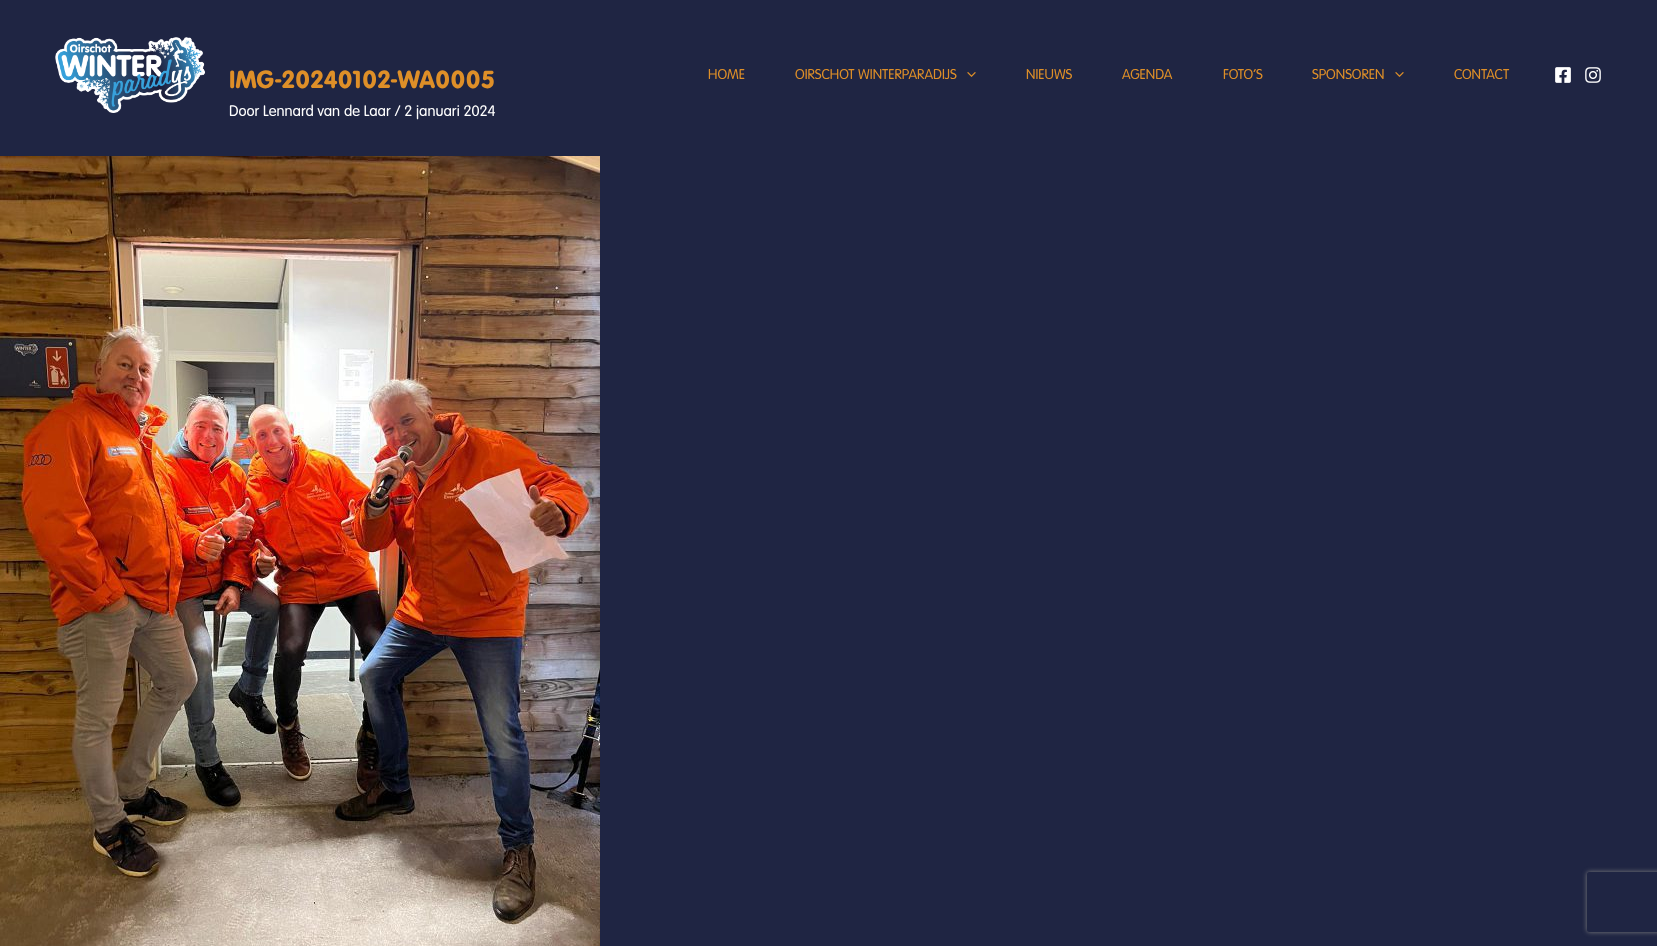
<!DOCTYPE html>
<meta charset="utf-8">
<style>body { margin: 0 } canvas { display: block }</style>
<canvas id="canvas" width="1657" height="946"></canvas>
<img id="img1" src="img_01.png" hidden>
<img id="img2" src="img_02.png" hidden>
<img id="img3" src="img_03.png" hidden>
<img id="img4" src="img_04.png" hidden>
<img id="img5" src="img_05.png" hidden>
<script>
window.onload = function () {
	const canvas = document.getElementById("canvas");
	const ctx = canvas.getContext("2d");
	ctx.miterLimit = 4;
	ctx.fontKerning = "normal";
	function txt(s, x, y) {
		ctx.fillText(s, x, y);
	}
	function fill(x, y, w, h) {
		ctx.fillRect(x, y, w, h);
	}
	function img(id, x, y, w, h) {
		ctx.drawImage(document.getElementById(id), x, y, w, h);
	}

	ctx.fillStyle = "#1F2543";
	fill(0, 0, 1657, 946);
	img("img1", 0, 156, 600, 790);
	img("img2", 55, 37, 150, 76);
	img("img3", 967, 72, 9, 5);
	img("img3", 1395, 72, 9, 5);
	img("img4", 1555, 67, 16, 16);
	img("img5", 1585, 67, 16, 16);
	ctx.save();
	ctx.beginPath();
	ctx.moveTo(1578, 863);
	ctx.lineTo(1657, 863);
	ctx.lineTo(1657, 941);
	ctx.lineTo(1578, 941);
	ctx.closePath();
	ctx.moveTo(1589, 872);
	ctx.lineTo(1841, 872);
	ctx.bezierCurveTo(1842, 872, 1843, 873, 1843, 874);
	ctx.lineTo(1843, 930);
	ctx.bezierCurveTo(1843, 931, 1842, 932, 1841, 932);
	ctx.lineTo(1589, 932);
	ctx.bezierCurveTo(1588, 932, 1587, 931, 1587, 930);
	ctx.lineTo(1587, 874);
	ctx.bezierCurveTo(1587, 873, 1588, 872, 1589, 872);
	ctx.closePath();
	ctx.clip("evenodd");
	ctx.fillStyle = "#808080";
	ctx.filter = "blur(2.5px)";
	ctx.beginPath();
	ctx.roundRect(1587, 872, 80, 60, 2);
	ctx.fill();
	ctx.filter = "none";
	ctx.restore();
	ctx.font = "26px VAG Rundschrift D";
	ctx.fillStyle = "#DE8F28";
	txt("IMG-20240102-WA0005", 229, 88);
	ctx.font = "300 16px VAG Rundschrift D";
	ctx.fillStyle = "#FFFFFF";
	txt("Door Lennard van de Laar / 2 januari 2024", 229, 116);
	ctx.font = "300 15px VAG Rundschrift D";
	ctx.fillStyle = "#DE8F28";
	txt("HOME", 708, 79);
	txt("OIRSCHOT WINTERPARADIJS", 795, 79);
	txt("NIEUWS", 1026, 79);
	txt("AGENDA", 1122, 79);
	txt("FOTO’S", 1223, 79);
	txt("SPONSOREN", 1312, 79);
	txt("CONTACT", 1454, 79);
};
</script>
